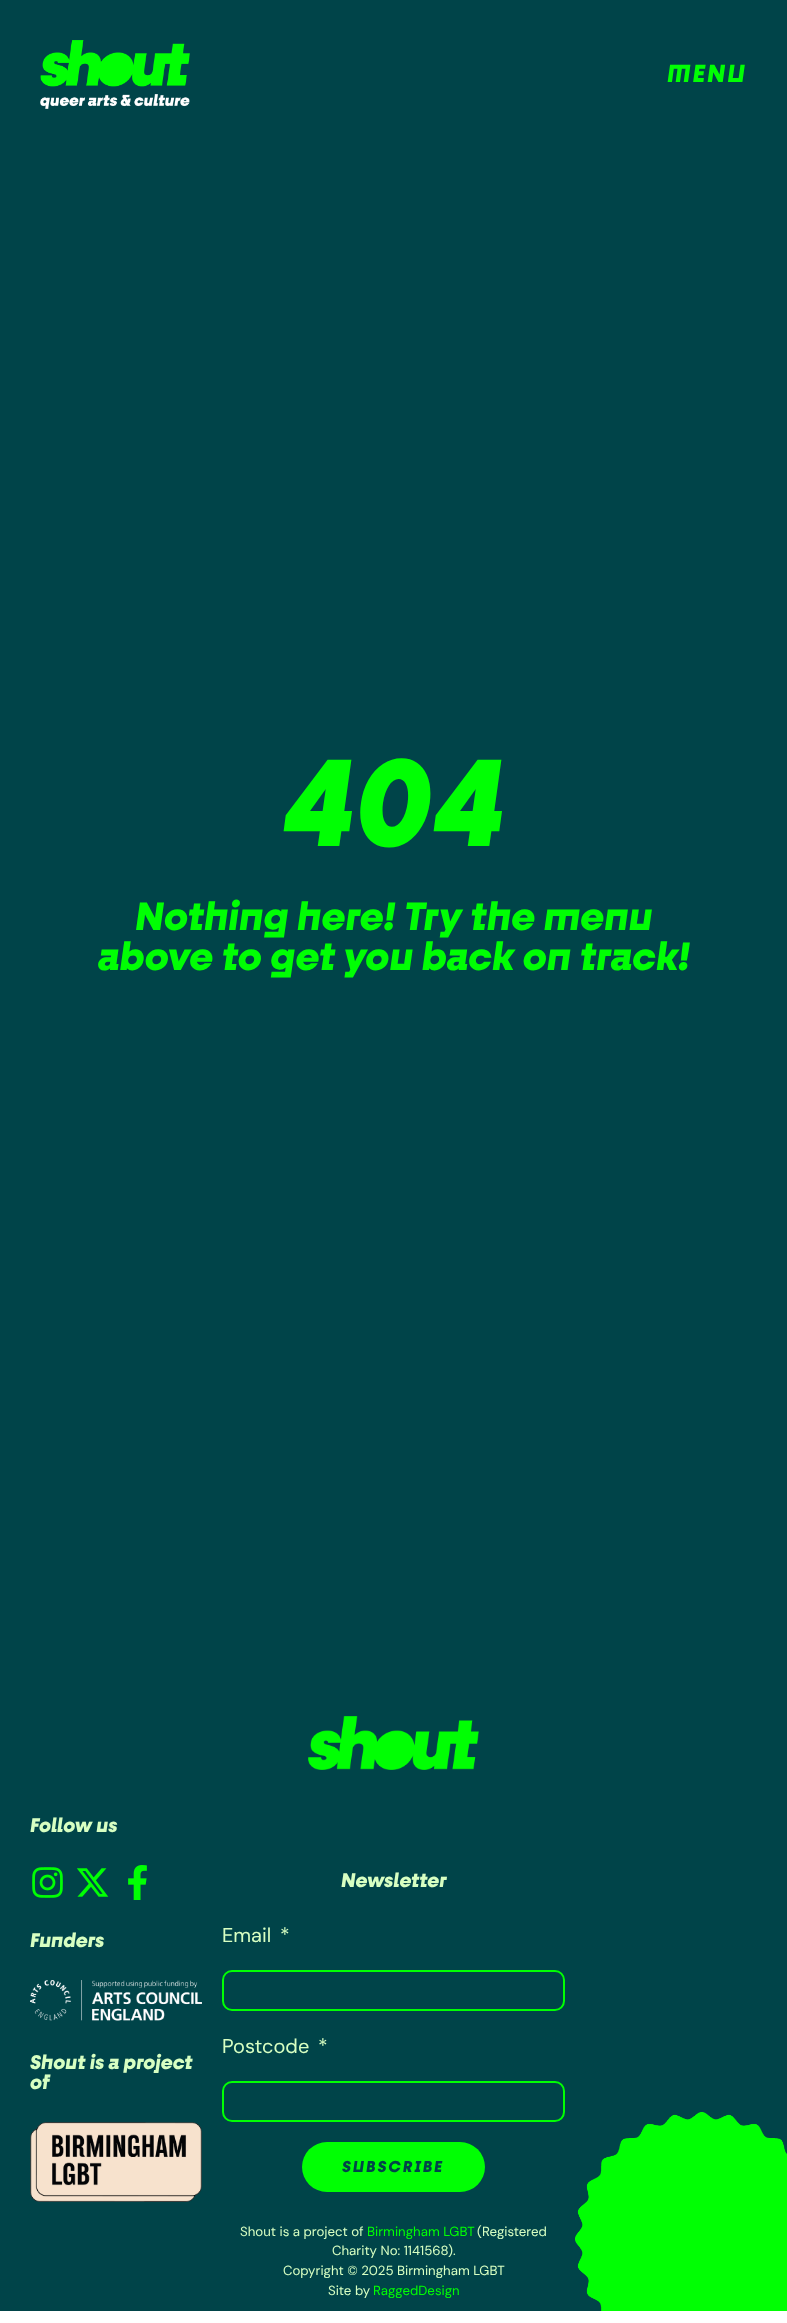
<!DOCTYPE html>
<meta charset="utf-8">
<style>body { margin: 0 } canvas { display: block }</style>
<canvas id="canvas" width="787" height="2323"></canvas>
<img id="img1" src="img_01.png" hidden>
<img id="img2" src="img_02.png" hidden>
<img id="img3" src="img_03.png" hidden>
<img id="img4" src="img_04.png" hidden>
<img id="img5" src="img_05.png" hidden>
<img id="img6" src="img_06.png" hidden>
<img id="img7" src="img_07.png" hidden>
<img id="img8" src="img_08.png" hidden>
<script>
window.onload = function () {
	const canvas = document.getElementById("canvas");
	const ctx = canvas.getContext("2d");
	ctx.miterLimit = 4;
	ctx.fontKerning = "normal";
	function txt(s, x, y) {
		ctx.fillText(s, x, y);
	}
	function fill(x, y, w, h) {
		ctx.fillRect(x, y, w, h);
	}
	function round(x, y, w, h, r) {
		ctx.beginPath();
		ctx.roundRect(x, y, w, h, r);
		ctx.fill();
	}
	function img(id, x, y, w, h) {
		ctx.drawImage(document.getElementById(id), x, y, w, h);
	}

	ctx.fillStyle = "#FFFFFF";
	fill(0, 0, 787, 2323);
	ctx.fillStyle = "#004449";
	fill(0, 0, 787, 2311);
	img("img1", 40, 40, 150, 69);
	img("img2", 575, 2112, 212, 199);
	img("img3", 32, 1867, 31, 31);
	img("img4", 77, 1868, 32, 29);
	img("img5", 128, 1865, 19, 35);
	img("img6", 30, 1980, 172, 41);
	img("img7", 30, 2122, 172, 80);
	img("img8", 308, 1716, 171, 54);
	ctx.beginPath();
	ctx.roundRect(223, 1971, 341, 39, 9);
	ctx.strokeStyle = "#00FF03";
	ctx.lineWidth = 2;
	ctx.stroke();
	ctx.beginPath();
	ctx.roundRect(223, 2082, 341, 39, 9);
	ctx.stroke();
	ctx.fillStyle = "#00FF03";
	round(302, 2142, 183, 50, 25);
	ctx.letterSpacing = "2px";
	ctx.font = "italic 800 25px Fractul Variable";
	txt("MENU", 667, 82);
	ctx.letterSpacing = "0px";
	ctx.font = "italic 800 125px Fractul Variable";
	txt("404", 283, 846);
	ctx.font = "italic 800 40px Fractul Variable";
	txt("Nothing here! Try the menu", 135, 930);
	txt("above to get you back on track!", 98, 970);
	ctx.font = "italic 800 20px Fractul Variable";
	ctx.fillStyle = "#D7FFC2";
	txt("Follow us", 30, 1832);
	txt("Funders", 30, 1947);
	txt("Shout is a project", 30, 2069);
	txt("of", 30, 2089);
	txt("Newsletter", 341, 1887);
	ctx.font = "20px DM Sans";
	txt("Email", 222, 1942);
	txt("*", 280, 1942);
	txt("Postcode", 222, 2053);
	txt("*", 318, 2053);
	ctx.letterSpacing = "2px";
	ctx.font = "italic 800 16px Fractul Variable";
	ctx.fillStyle = "#004449";
	txt("SUBSCRIBE", 342, 2172);
	ctx.letterSpacing = "0px";
	ctx.font = "13.25px DM Sans";
	ctx.fillStyle = "#D7FFC2";
	txt("Shout is a project of", 240, 2236);
	ctx.fillStyle = "#00FF03";
	txt("Birmingham LGBT", 367, 2236);
	ctx.fillStyle = "#D7FFC2";
	txt("(Registered", 477, 2236);
	txt("Charity No: 1141568).", 332, 2255);
	txt("Copyright © 2025 Birmingham LGBT", 283, 2275);
	txt("Site by", 328, 2295);
	ctx.fillStyle = "#00FF03";
	txt("RaggedDesign", 373, 2295);
};
</script>
